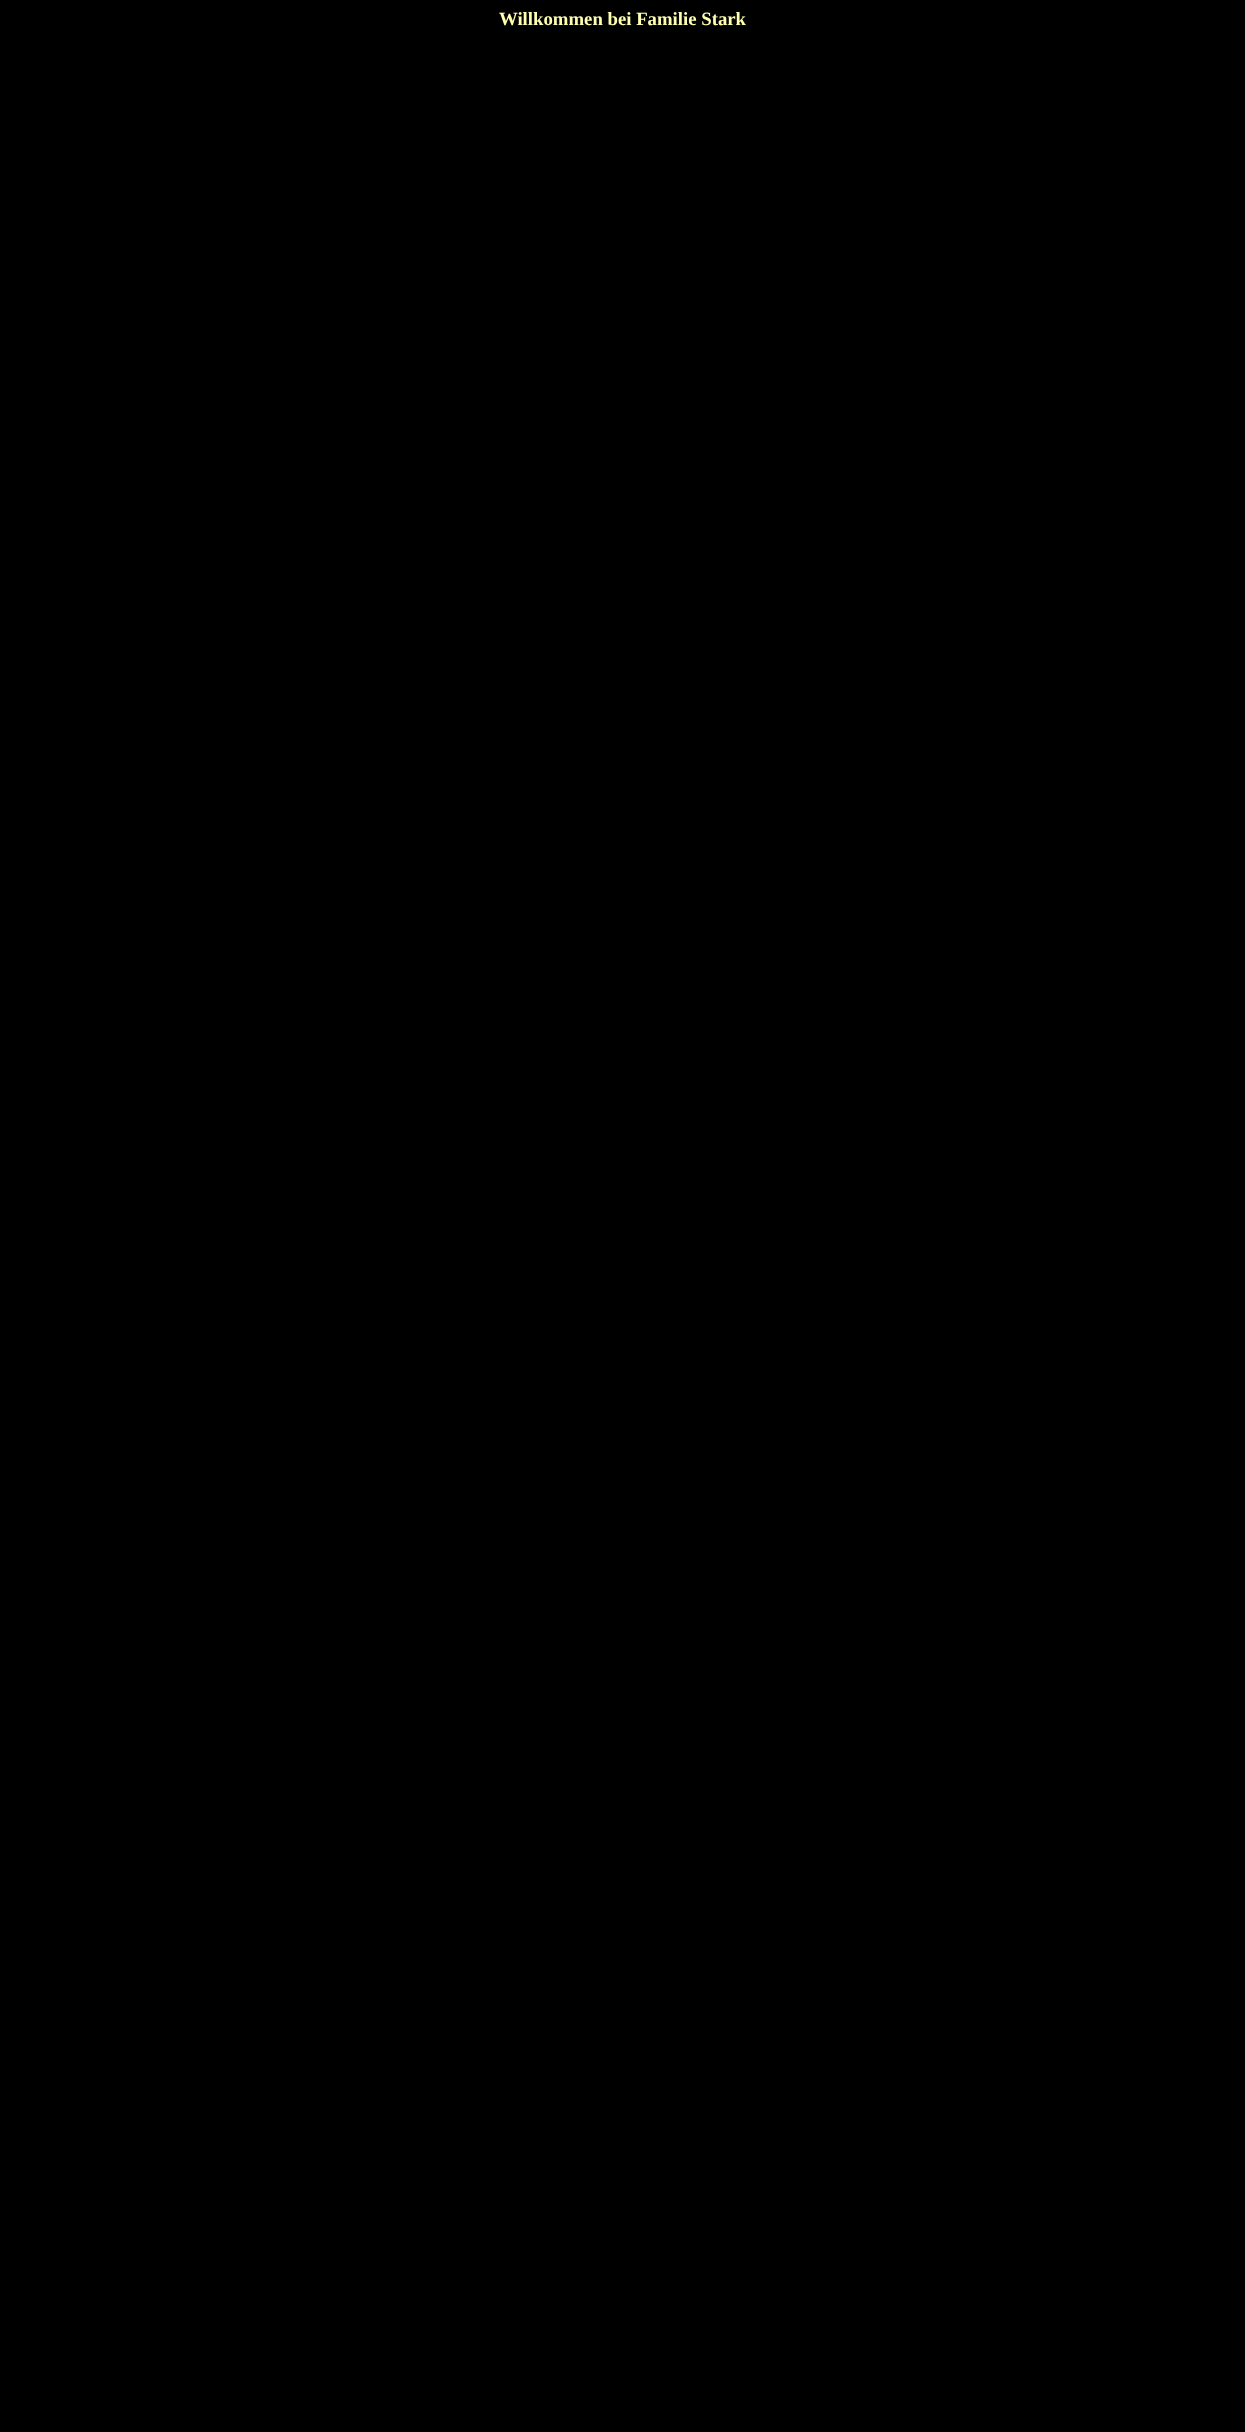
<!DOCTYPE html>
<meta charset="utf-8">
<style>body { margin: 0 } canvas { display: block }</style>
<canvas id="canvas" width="1245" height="2432"></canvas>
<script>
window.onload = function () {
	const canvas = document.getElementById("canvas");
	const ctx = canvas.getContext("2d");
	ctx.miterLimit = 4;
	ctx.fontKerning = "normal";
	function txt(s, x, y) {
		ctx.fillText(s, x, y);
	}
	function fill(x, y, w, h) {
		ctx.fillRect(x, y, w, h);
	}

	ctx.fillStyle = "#000000";
	fill(0, 0, 1245, 2432);
	ctx.font = "bold 18.75px Liberation Serif";
	ctx.fillStyle = "#FFFFB0";
	txt("Willkommen bei Familie Stark", 499, 25);
};
</script>
